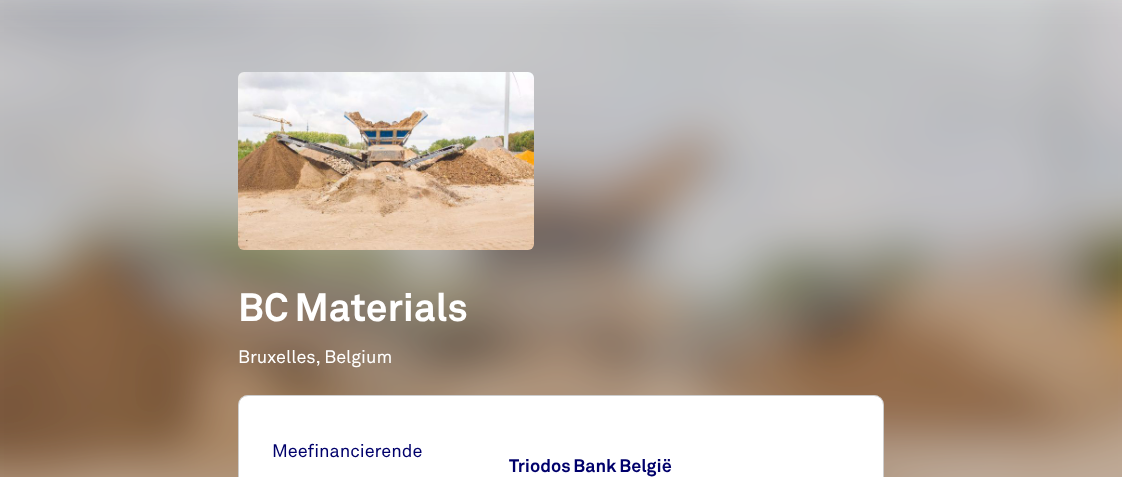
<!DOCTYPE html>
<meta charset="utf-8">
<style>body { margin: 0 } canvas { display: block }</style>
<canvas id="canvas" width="1122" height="477"></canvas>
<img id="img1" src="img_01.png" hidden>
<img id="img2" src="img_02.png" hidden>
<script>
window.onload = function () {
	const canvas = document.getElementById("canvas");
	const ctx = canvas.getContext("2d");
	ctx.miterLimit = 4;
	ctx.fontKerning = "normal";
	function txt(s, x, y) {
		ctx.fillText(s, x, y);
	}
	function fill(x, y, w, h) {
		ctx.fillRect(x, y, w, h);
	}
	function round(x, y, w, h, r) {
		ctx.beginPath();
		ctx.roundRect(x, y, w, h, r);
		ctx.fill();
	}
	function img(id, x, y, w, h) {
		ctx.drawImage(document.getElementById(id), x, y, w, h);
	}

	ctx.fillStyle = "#FFFFFF";
	fill(0, 0, 1122, 477);
	img("img1", 0, 0, 1122, 477);
	img("img2", 238, 72, 296, 178);
	round(238, 395, 646, 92, 10);
	ctx.beginPath();
	ctx.roundRect(238.5, 395.5, 645, 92, 9.5);
	ctx.strokeStyle = "rgba(155, 155, 155, 0.5)";
	ctx.stroke();
	ctx.wordSpacing = "-2px";
	ctx.font = "bold 39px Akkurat";
	txt("BC Materials", 238, 321);
	ctx.wordSpacing = "0px";
	ctx.font = "18px Akkurat";
	txt("Bruxelles, Belgium", 238, 363);
	ctx.fillStyle = "#00006B";
	txt("Meefinancierende", 272, 457);
	ctx.wordSpacing = "-1px";
	ctx.font = "bold 18px Akkurat";
	txt("Triodos Bank België", 509, 472);
};
</script>
